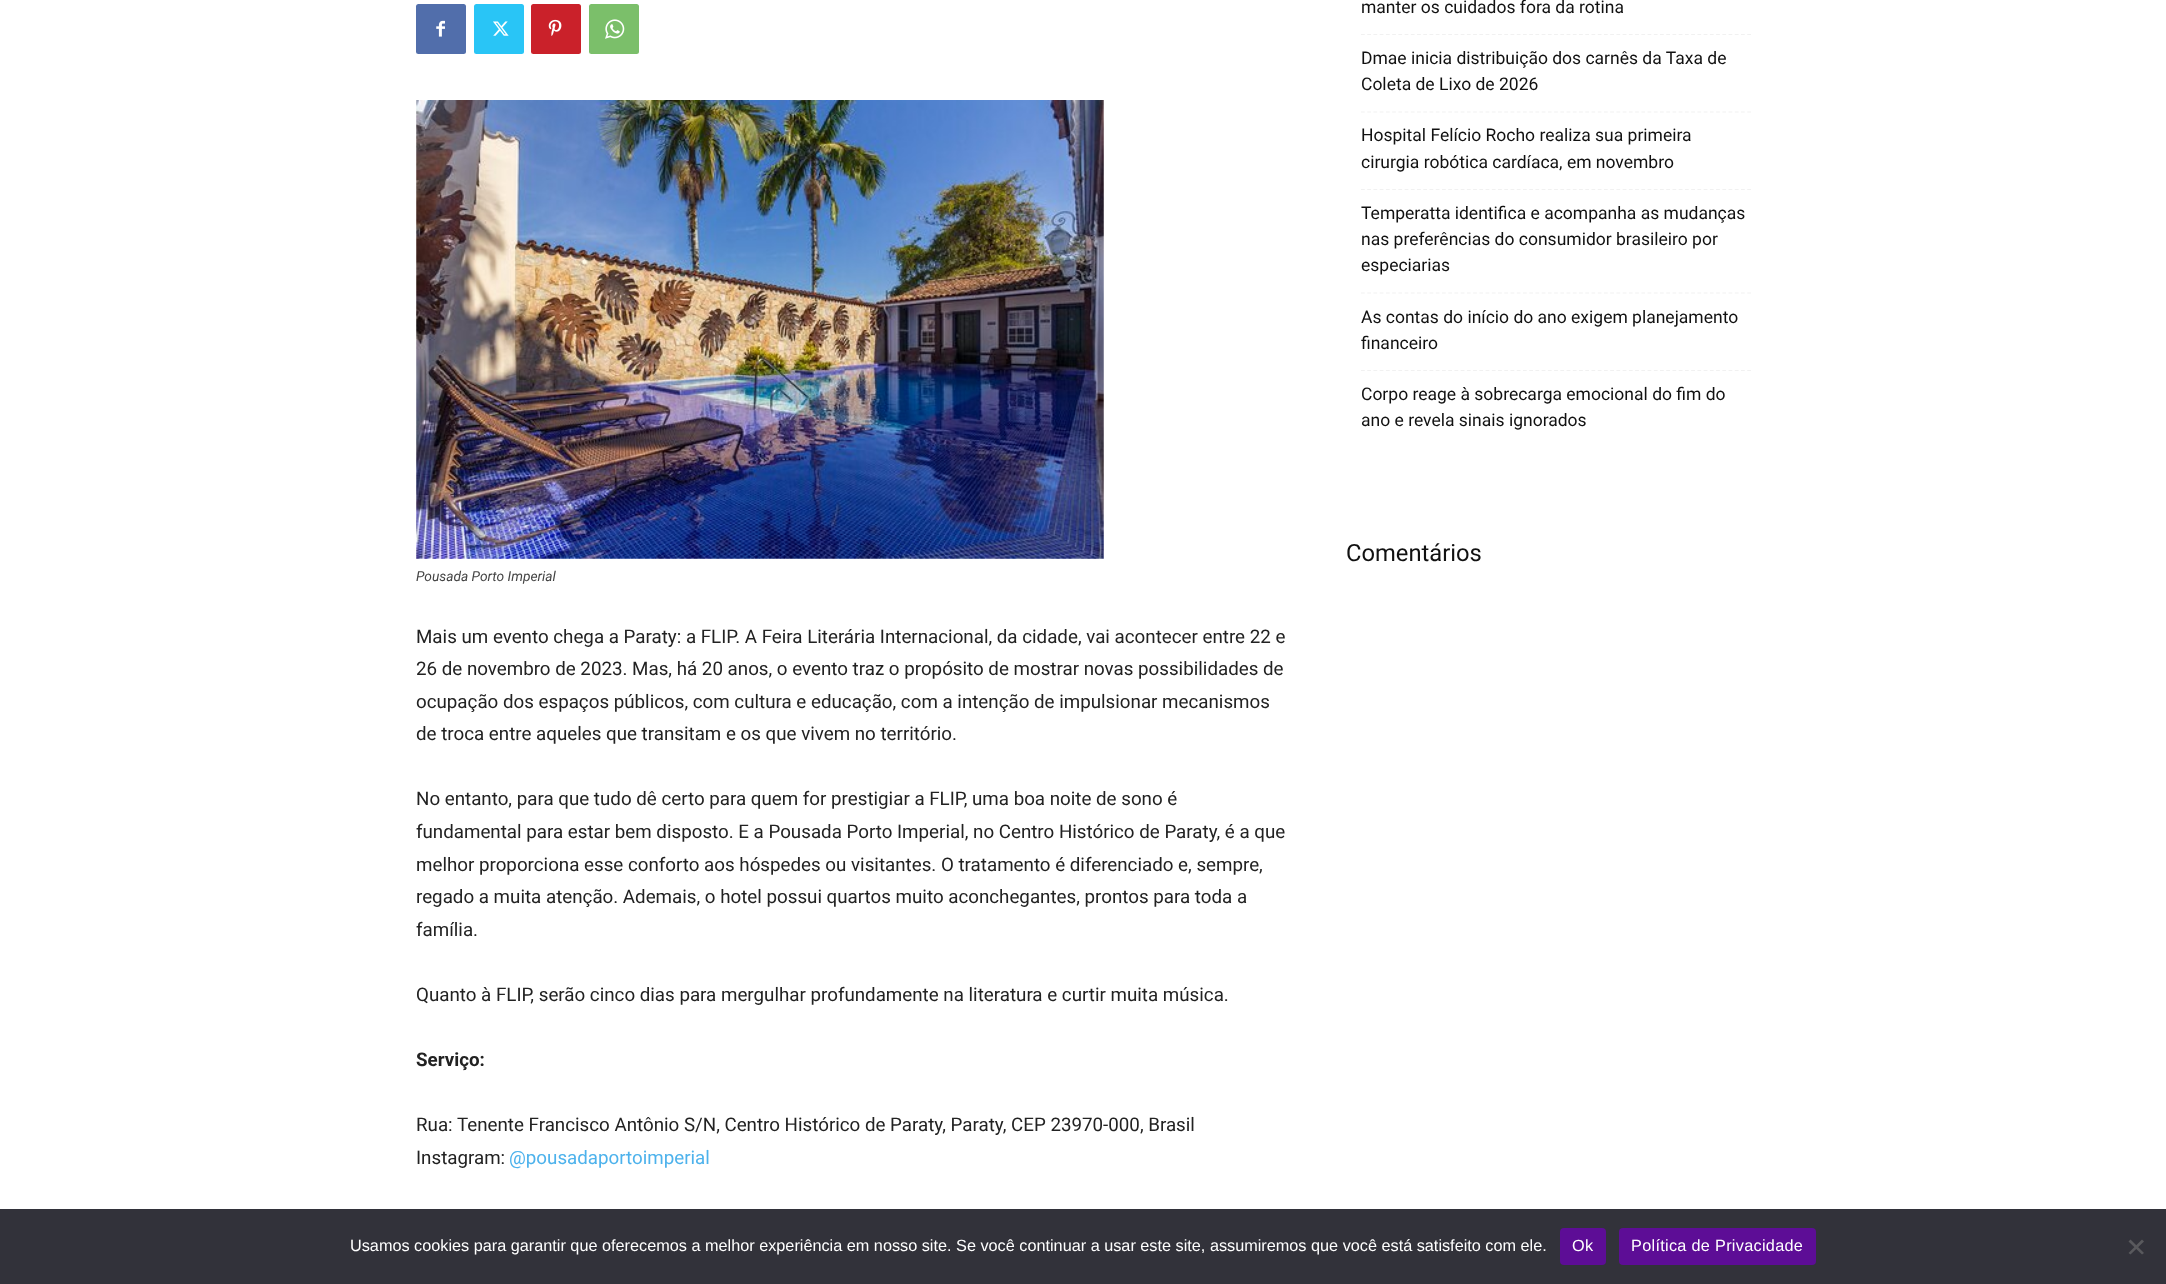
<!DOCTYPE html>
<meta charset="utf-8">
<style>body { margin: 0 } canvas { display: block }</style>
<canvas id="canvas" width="2166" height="1284"></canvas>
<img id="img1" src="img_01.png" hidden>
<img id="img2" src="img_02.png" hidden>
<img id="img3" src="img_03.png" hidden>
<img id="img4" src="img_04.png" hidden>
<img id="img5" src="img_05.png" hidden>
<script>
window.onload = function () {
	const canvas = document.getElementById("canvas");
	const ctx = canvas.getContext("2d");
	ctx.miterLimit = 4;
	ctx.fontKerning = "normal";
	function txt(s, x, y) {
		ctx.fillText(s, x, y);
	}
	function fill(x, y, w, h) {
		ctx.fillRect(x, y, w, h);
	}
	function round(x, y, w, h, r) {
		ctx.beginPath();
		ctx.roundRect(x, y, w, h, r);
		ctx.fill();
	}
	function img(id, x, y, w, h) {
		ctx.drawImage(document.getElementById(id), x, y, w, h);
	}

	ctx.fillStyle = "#FFFFFF";
	fill(0, 0, 2166, 1284);
	ctx.beginPath();
	ctx.moveTo(1361, 34.5);
	ctx.lineTo(1751, 34.5);
	ctx.strokeStyle = "#F1F1F1";
	ctx.lineWidth = 1.2;
	ctx.setLineDash([3.75, 2.48]);
	ctx.stroke();
	ctx.beginPath();
	ctx.moveTo(1361, 112);
	ctx.lineTo(1751, 112);
	ctx.stroke();
	ctx.beginPath();
	ctx.moveTo(1361, 189.5);
	ctx.lineTo(1751, 189.5);
	ctx.stroke();
	ctx.beginPath();
	ctx.moveTo(1361, 293);
	ctx.lineTo(1751, 293);
	ctx.stroke();
	ctx.beginPath();
	ctx.moveTo(1361, 370.5);
	ctx.lineTo(1751, 370.5);
	ctx.stroke();
	ctx.fillStyle = "#516EAB";
	round(416, 4, 50, 50, 2.5);
	img("img1", 436, 20, 9, 17);
	ctx.fillStyle = "#29C5F6";
	round(474, 4, 50, 50, 2.5);
	img("img2", 493, 21, 16, 15);
	ctx.fillStyle = "#CA212A";
	round(531, 4, 50, 50, 2.5);
	img("img3", 548, 19, 14, 17);
	ctx.fillStyle = "#7BBF6A";
	round(589, 4, 50, 50, 2.5);
	img("img4", 605, 19, 20, 20);
	img("img5", 416, 100, 688, 459);
	ctx.fillStyle = "#32323A";
	fill(0, 1209, 2166, 75);
	ctx.fillStyle = "#5D0D96";
	round(1560, 1228, 46, 37, 4);
	round(1619, 1228, 197, 37, 4);
	ctx.fillStyle = "#59595D";
	ctx.beginPath();
	ctx.moveTo(2142, 1239.5);
	ctx.lineTo(2144, 1241.5);
	ctx.lineTo(2130.5, 1254.5);
	ctx.lineTo(2128.5, 1253);
	ctx.closePath();
	ctx.fill();
	ctx.beginPath();
	ctx.moveTo(2128.5, 1241.5);
	ctx.lineTo(2130.5, 1239.5);
	ctx.lineTo(2144, 1253);
	ctx.lineTo(2142, 1254.5);
	ctx.closePath();
	ctx.fill();
	ctx.font = "17.5px Roboto";
	ctx.fillStyle = "#111111";
	txt("manter os cuidados fora da rotina", 1361, 13);
	txt("Dmae inicia distribuição dos carnês da Taxa de", 1361, 64);
	txt("Coleta de Lixo de 2026", 1361, 90);
	txt("Hospital Felício Rocho realiza sua primeira", 1361, 141);
	txt("cirurgia robótica cardíaca, em novembro", 1361, 168);
	txt("Temperatta identifica e acompanha as mudanças", 1361, 219);
	txt("nas preferências do consumidor brasileiro por", 1361, 245);
	txt("especiarias", 1361, 271);
	txt("As contas do início do ano exigem planejamento", 1361, 323);
	txt("financeiro", 1361, 349);
	txt("Corpo reage à sobrecarga emocional do fim do", 1361, 400);
	txt("ano e revela sinais ignorados", 1361, 426);
	ctx.font = "23.75px Roboto";
	txt("Comentários", 1346, 561);
	ctx.font = "italic 13.75px Roboto";
	ctx.fillStyle = "#444444";
	txt("Pousada Porto Imperial", 416, 581);
	ctx.font = "18.75px Roboto";
	ctx.fillStyle = "#222222";
	txt("Mais um evento chega a Paraty: a FLIP. A Feira Literária Internacional, da cidade, vai acontecer entre 22 e", 416, 643);
	txt("26 de novembro de 2023. Mas, há 20 anos, o evento traz o propósito de mostrar novas possibilidades de", 416, 675);
	txt("ocupação dos espaços públicos, com cultura e educação, com a intenção de impulsionar mecanismos", 416, 708);
	txt("de troca entre aqueles que transitam e os que vivem no território.", 416, 740);
	txt("No entanto, para que tudo dê certo para quem for prestigiar a FLIP, uma boa noite de sono é", 416, 805);
	txt("fundamental para estar bem disposto. E a Pousada Porto Imperial, no Centro Histórico de Paraty, é a que", 416, 838);
	txt("melhor proporciona esse conforto aos hóspedes ou visitantes. O tratamento é diferenciado e, sempre,", 416, 871);
	txt("regado a muita atenção. Ademais, o hotel possui quartos muito aconchegantes, prontos para toda a", 416, 903);
	txt("família.", 416, 936);
	txt("Quanto à FLIP, serão cinco dias para mergulhar profundamente na literatura e curtir muita música.", 416, 1001);
	ctx.font = "bold 18.75px Roboto";
	txt("Serviço:", 416, 1066);
	ctx.font = "18.75px Roboto";
	txt("Rua: Tenente Francisco Antônio S/N, Centro Histórico de Paraty, Paraty, CEP 23970-000, Brasil", 416, 1131);
	txt("Instagram:", 416, 1164);
	ctx.fillStyle = "#4DB2EC";
	txt("@pousadaportoimperial", 509, 1164);
	ctx.font = "16.25px Liberation Sans";
	ctx.fillStyle = "#FFFFFF";
	txt("Usamos cookies para garantir que oferecemos a melhor experiência em nosso site. Se você continuar a usar este site, assumiremos que você está satisfeito com ele.", 350, 1251);
	ctx.letterSpacing = "0.3px";
	txt("Ok", 1572, 1251);
	txt("Política de Privacidade", 1631, 1251);
};
</script>
